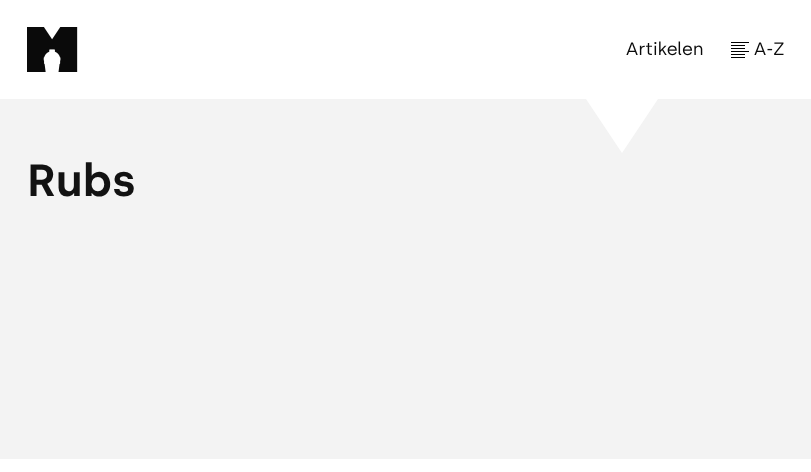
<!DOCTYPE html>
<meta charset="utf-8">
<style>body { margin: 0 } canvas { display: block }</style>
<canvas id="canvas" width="811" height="472"></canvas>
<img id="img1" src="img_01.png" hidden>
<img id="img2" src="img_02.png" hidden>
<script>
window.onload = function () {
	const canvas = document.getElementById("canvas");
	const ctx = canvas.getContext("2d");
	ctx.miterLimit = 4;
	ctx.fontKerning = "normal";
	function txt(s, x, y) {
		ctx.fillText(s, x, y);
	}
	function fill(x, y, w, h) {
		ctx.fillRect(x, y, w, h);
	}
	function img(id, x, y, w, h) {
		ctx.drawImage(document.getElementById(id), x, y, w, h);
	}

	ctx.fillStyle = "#FFFFFF";
	fill(0, 0, 811, 472);
	img("img1", 27, 27, 51, 45);
	img("img2", 731, 42, 18, 16);
	ctx.fillStyle = "#F3F3F3";
	fill(0, 99, 811, 360);
	ctx.fillStyle = "#FFFFFF";
	ctx.beginPath();
	ctx.moveTo(586, 99);
	ctx.lineTo(622, 153);
	ctx.lineTo(658, 99);
	ctx.closePath();
	ctx.fill();
	ctx.font = "18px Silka";
	ctx.fillStyle = "#0A0A0A";
	txt("Artikelen", 626, 55);
	txt("A-Z", 754, 55);
	ctx.font = "600 45px Silka";
	ctx.fillStyle = "#121212";
	txt("Rubs", 27, 196);
};
</script>
